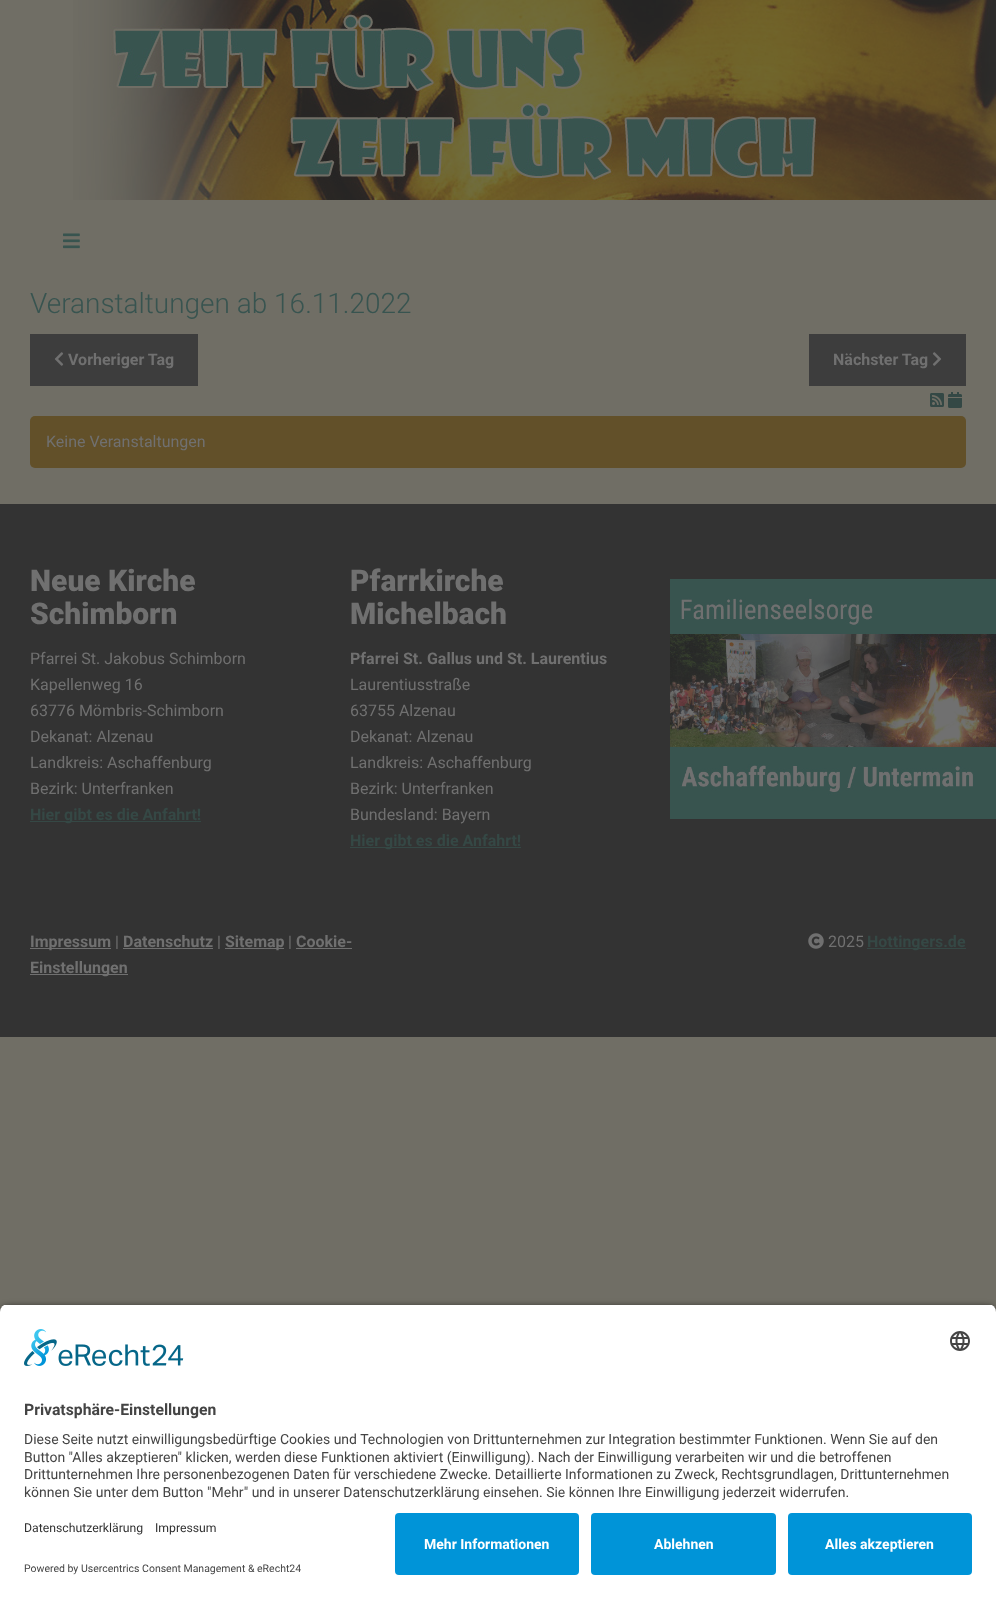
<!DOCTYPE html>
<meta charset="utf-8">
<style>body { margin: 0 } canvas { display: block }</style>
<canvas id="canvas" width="996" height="1599"></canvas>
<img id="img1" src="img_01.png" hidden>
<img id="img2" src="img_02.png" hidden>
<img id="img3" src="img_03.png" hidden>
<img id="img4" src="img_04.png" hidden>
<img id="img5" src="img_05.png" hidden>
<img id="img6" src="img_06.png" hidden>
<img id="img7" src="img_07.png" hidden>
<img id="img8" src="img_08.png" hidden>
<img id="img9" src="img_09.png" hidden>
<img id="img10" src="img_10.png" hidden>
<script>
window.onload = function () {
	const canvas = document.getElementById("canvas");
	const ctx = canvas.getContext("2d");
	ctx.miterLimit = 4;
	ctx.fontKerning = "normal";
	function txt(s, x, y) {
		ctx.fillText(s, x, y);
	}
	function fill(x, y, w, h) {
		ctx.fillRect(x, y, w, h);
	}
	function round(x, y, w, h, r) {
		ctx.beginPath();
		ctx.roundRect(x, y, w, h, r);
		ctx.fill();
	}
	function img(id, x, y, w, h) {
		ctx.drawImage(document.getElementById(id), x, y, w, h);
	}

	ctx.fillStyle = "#706E65";
	fill(0, 0, 996, 1599);
	img("img1", 73, 0, 923, 200);
	img("img2", 63, 233, 17, 16);
	ctx.fillStyle = "#3D3D3D";
	fill(30, 334, 168, 52);
	img("img3", 54, 352, 10, 14);
	fill(809, 334, 157, 52);
	img("img4", 932, 352, 10, 14);
	img("img5", 930, 393, 14, 14);
	img("img6", 948, 392, 14, 16);
	ctx.fillStyle = "#625029";
	round(30, 416, 936, 52, 5);
	ctx.fillStyle = "#333333";
	fill(0, 504, 996, 533);
	ctx.fillStyle = "#354845";
	fill(30, 821, 171, 1);
	fill(350, 847, 171, 1);
	img("img7", 670, 579, 326, 240);
	ctx.fillStyle = "#707070";
	fill(30, 948, 81, 1);
	fill(123, 948, 90, 1);
	fill(225, 948, 59, 1);
	fill(296, 948, 56, 1);
	fill(30, 974, 98, 1);
	img("img8", 808, 933, 16, 16);
	ctx.fillStyle = "#354845";
	fill(867, 948, 99, 1);
	ctx.fillStyle = "rgba(0, 0, 0, 0.8)";
	ctx.filter = "blur(3.5px)";
	ctx.beginPath();
	ctx.roundRect(0, 1307, 996, 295, 8);
	ctx.fill();
	ctx.filter = "none";
	ctx.save();
	ctx.beginPath();
	ctx.roundRect(0, 1304, 996, 201, [8, 8, 0, 0]);
	ctx.clip();
	ctx.fillStyle = "#FFFFFF";
	fill(0, 1305, 996, 200);
	ctx.restore();
	img("img9", 24, 1329, 160, 37);
	img("img10", 950, 1331, 20, 20);
	ctx.fillStyle = "#FFFFFF";
	fill(0, 1505, 996, 94);
	ctx.fillStyle = "#0094D8";
	round(395, 1513, 184, 62, 4);
	round(591, 1513, 185, 62, 4);
	round(788, 1513, 184, 62, 4);
	ctx.font = "300 28px Roboto";
	ctx.fillStyle = "#385450";
	txt("Veranstaltungen ab 16.11.2022", 30, 313);
	ctx.font = "bold 16px Roboto";
	ctx.fillStyle = "#707070";
	txt("Vorheriger Tag", 68, 365);
	txt("Nächster Tag", 833, 365);
	ctx.font = "16px Roboto";
	txt("Keine Veranstaltungen", 46, 447);
	ctx.font = "900 30px Roboto";
	txt("Neue Kirche", 30, 591);
	txt("Schimborn", 30, 624);
	ctx.font = "16px Roboto";
	txt("Pfarrei St. Jakobus Schimborn", 30, 664);
	txt("Kapellenweg 16", 30, 690);
	txt("63776 Mömbris-Schimborn", 30, 716);
	txt("Dekanat: Alzenau", 30, 742);
	txt("Landkreis: Aschaffenburg", 30, 768);
	txt("Bezirk: Unterfranken", 30, 794);
	ctx.font = "bold 16px Roboto";
	ctx.fillStyle = "#354845";
	txt("Hier gibt es die Anfahrt!", 30, 820);
	ctx.font = "900 30px Roboto";
	ctx.fillStyle = "#707070";
	txt("Pfarrkirche", 350, 591);
	txt("Michelbach", 350, 624);
	ctx.font = "bold 16px Roboto";
	txt("Pfarrei St. Gallus und St. Laurentius", 350, 664);
	ctx.font = "16px Roboto";
	txt("Laurentiusstraße", 350, 690);
	txt("63755 Alzenau", 350, 716);
	txt("Dekanat: Alzenau", 350, 742);
	txt("Landkreis: Aschaffenburg", 350, 768);
	txt("Bezirk: Unterfranken", 350, 794);
	txt("Bundesland: Bayern", 350, 820);
	ctx.font = "bold 16px Roboto";
	ctx.fillStyle = "#354845";
	txt("Hier gibt es die Anfahrt!", 350, 846);
	ctx.fillStyle = "#707070";
	txt("Impressum", 30, 947);
	ctx.font = "16px Roboto";
	txt("|", 115, 947);
	ctx.font = "bold 16px Roboto";
	txt("Datenschutz", 123, 947);
	ctx.font = "16px Roboto";
	txt("|", 217, 947);
	ctx.font = "bold 16px Roboto";
	txt("Sitemap", 225, 947);
	ctx.font = "16px Roboto";
	txt("|", 288, 947);
	ctx.font = "bold 16px Roboto";
	txt("Cookie-", 296, 947);
	txt("Einstellungen", 30, 973);
	ctx.font = "16px Roboto";
	txt("2025", 828, 947);
	ctx.font = "bold 16px Roboto";
	ctx.fillStyle = "#354845";
	txt("Hottingers.de", 867, 947);
	ctx.font = "bold 15.75px Roboto";
	ctx.fillStyle = "#444444";
	txt("Privatsphäre-Einstellungen", 24, 1415);
	ctx.font = "14px Roboto";
	txt("Diese Seite nutzt einwilligungsbedürftige Cookies und Technologien von Drittunternehmen zur Integration bestimmter Funktionen. Wenn Sie auf den", 24, 1444);
	txt("Button \"Alles akzeptieren\" klicken, werden diese Funktionen aktiviert (Einwilligung). Nach der Einwilligung verarbeiten wir und die betroffenen", 24, 1462);
	txt("Drittunternehmen Ihre personenbezogenen Daten für verschiedene Zwecke. Detaillierte Informationen zu Zweck, Rechtsgrundlagen, Drittunternehmen", 24, 1479);
	txt("können Sie unter dem Button \"Mehr\" und in unserer Datenschutzerklärung einsehen. Sie können Ihre Einwilligung jederzeit widerrufen.", 24, 1497);
	ctx.font = "12.25px Roboto";
	ctx.fillStyle = "#303030";
	txt("Datenschutzerklärung", 24, 1532);
	txt("Impressum", 155, 1532);
	ctx.font = "10.5px Roboto";
	ctx.fillStyle = "#444444";
	txt("Powered by Usercentrics Consent Management & eRecht24", 24, 1572);
	ctx.font = "bold 14px Roboto";
	ctx.fillStyle = "#FFFFFF";
	txt("Mehr Informationen", 424, 1549);
	txt("Ablehnen", 654, 1549);
	txt("Alles akzeptieren", 825, 1549);
};
</script>
